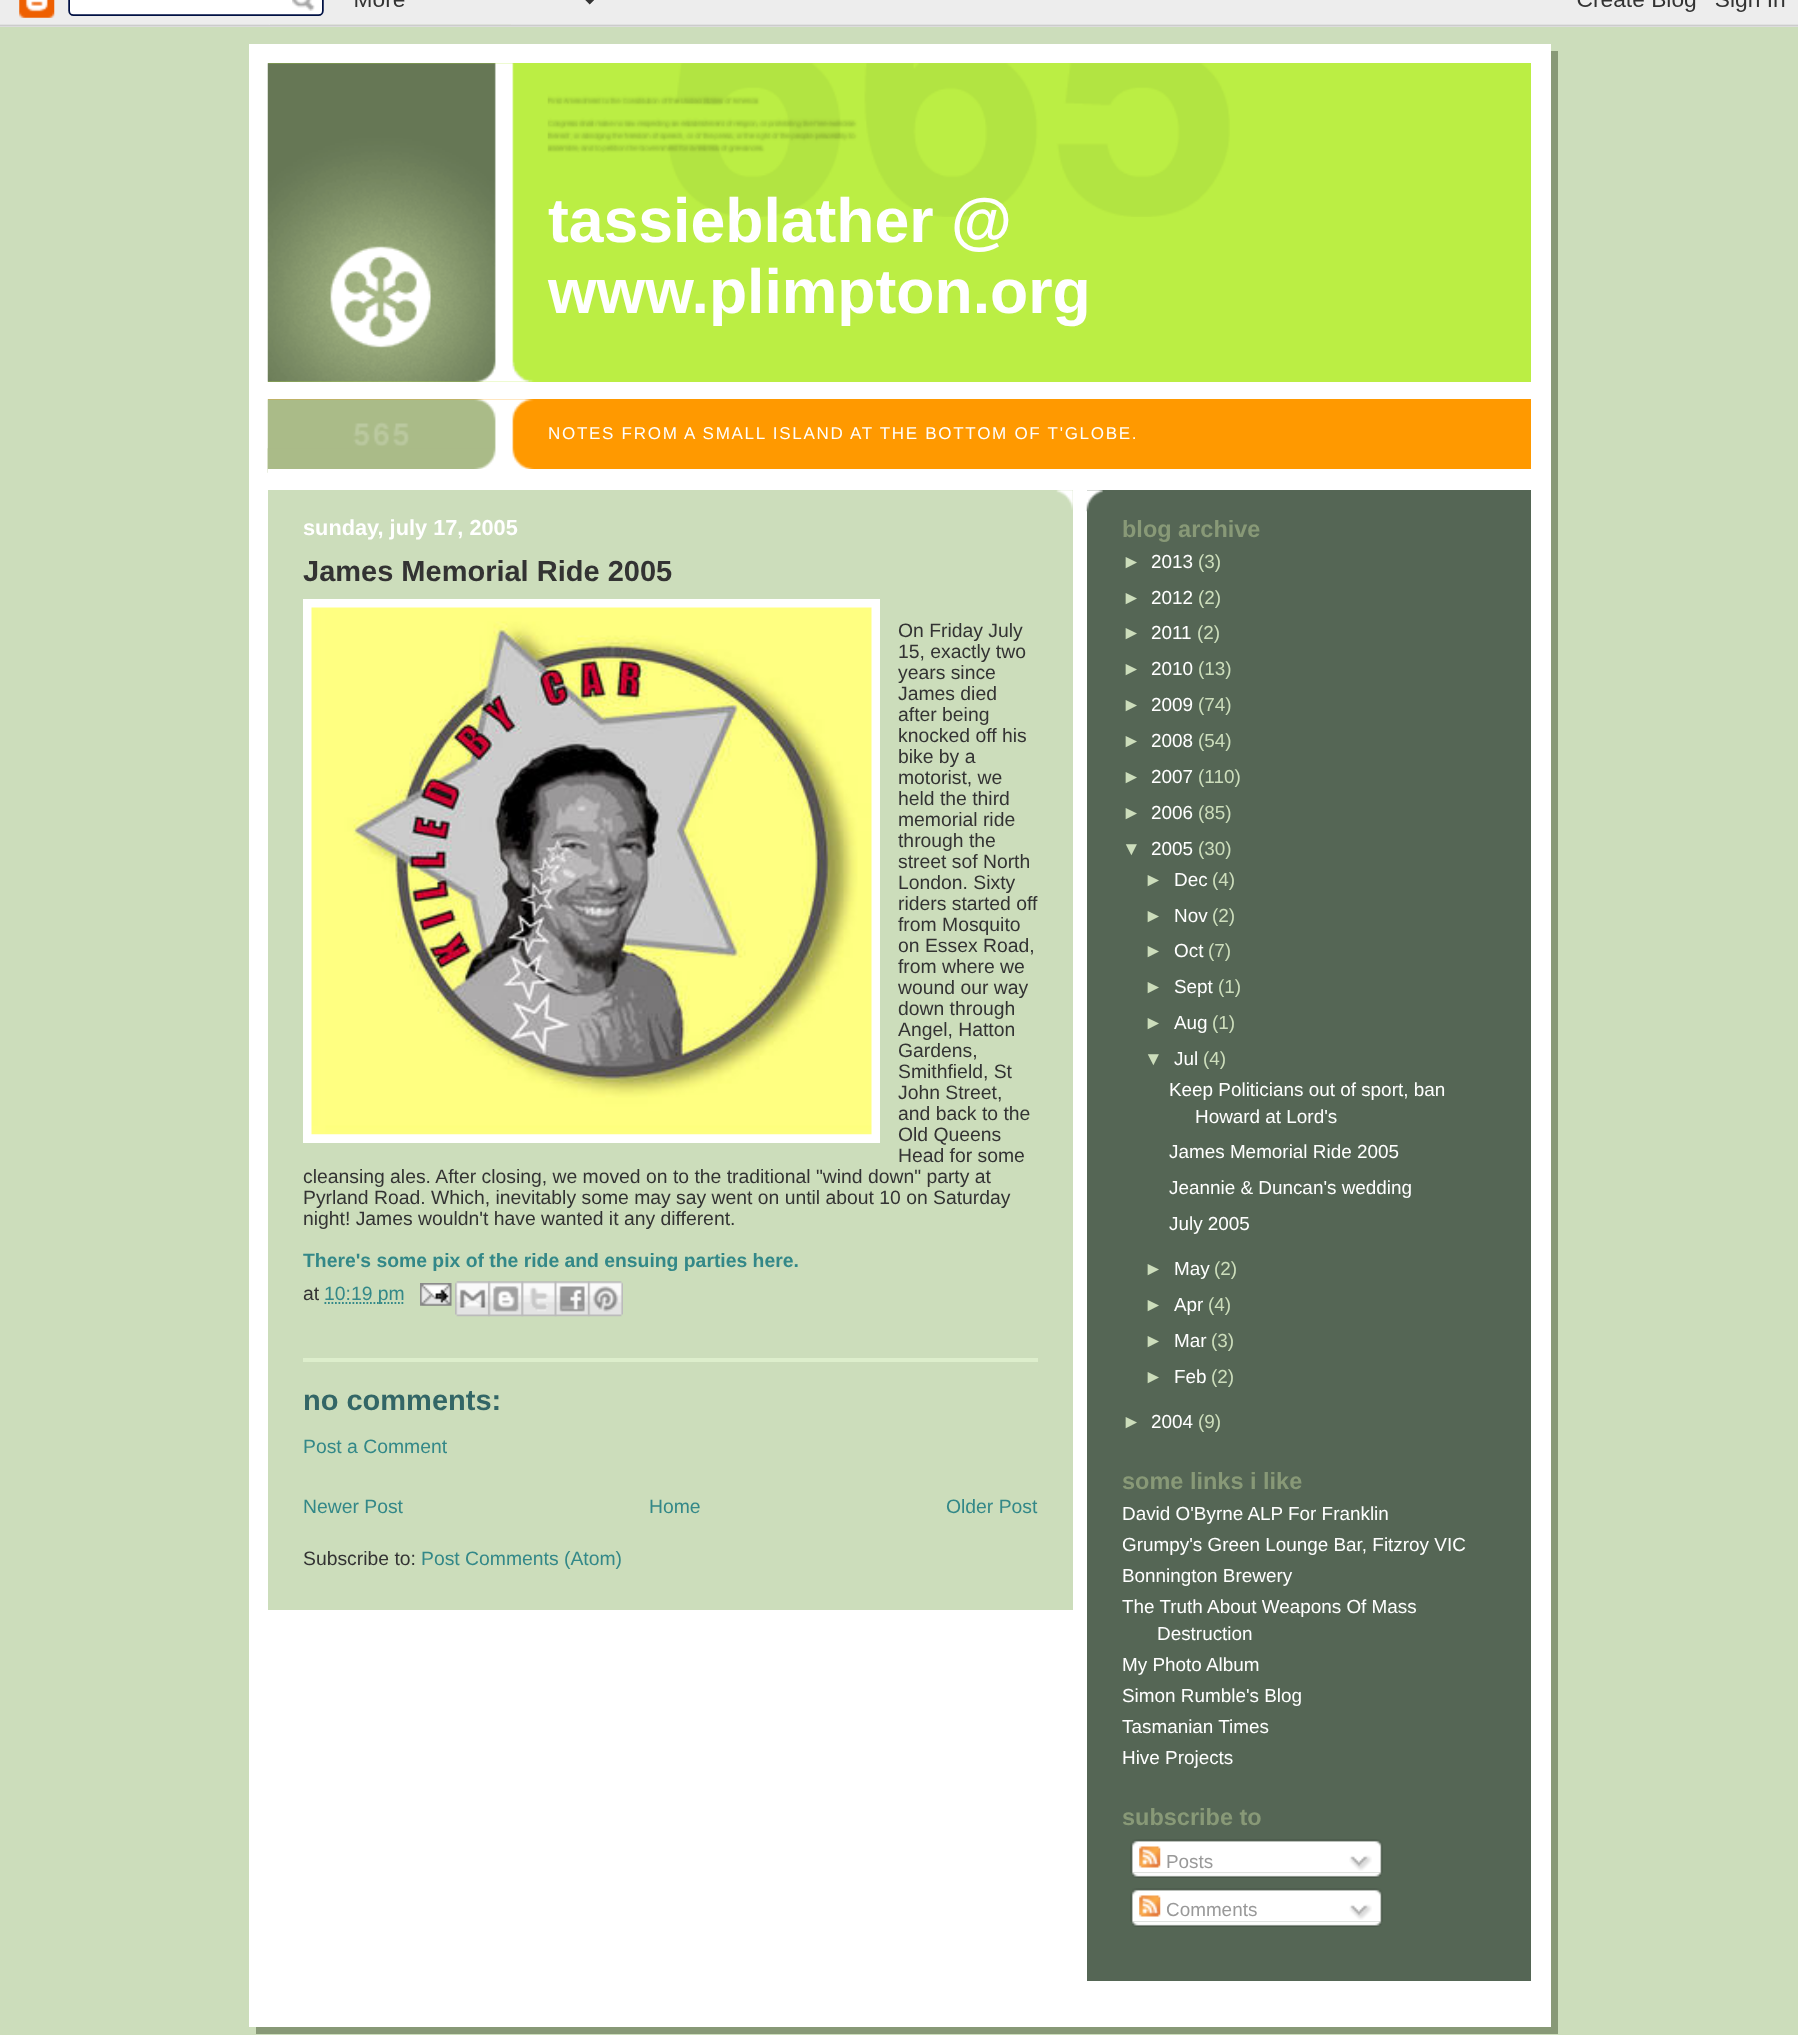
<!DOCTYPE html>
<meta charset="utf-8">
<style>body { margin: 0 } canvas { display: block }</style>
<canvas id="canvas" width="1798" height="2035"></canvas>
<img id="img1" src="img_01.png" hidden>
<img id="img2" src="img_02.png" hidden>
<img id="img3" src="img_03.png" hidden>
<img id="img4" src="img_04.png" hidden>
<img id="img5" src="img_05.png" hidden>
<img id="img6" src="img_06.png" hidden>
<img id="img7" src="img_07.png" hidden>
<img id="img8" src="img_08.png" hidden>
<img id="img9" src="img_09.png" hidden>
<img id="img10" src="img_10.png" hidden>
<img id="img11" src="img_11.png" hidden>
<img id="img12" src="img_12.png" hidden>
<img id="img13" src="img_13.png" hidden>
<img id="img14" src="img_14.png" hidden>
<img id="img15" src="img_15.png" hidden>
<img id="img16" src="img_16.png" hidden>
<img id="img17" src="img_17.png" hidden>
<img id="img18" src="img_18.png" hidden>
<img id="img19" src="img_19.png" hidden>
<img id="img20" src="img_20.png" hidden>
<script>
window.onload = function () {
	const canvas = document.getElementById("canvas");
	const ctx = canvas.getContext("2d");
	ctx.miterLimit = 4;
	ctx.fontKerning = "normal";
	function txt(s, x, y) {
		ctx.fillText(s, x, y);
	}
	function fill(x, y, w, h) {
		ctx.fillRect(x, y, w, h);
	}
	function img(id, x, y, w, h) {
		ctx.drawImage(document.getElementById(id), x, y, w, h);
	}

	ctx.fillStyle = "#CCDDBB";
	fill(0, 0, 1798, 2035);
	img("img1", 0, 0, 1798, 27);
	ctx.fillStyle = "#889977";
	fill(256, 51, 1302, 1983);
	ctx.fillStyle = "#FFFFFF";
	fill(249, 44, 1302, 1983);
	ctx.fillStyle = "#BBEE44";
	fill(268, 63, 1263, 319);
	img("img2", 267, 63, 267, 319);
	img("img3", 547, 63, 683, 154);
	ctx.fillStyle = "#FF9900";
	fill(268, 399, 1263, 70);
	img("img4", 267, 399, 267, 74);
	ctx.fillStyle = "#FFFFFF";
	fill(268, 471, 228, 2);
	img("img5", 267, 448, 267, 22);
	fill(268, 469, 266, 2);
	img("img6", 353, 422, 56, 24);
	ctx.fillStyle = "#CCDDBB";
	fill(268, 490, 805, 1120);
	img("img7", 1056, 490, 17, 20);
	ctx.strokeStyle = "#FFFFFF";
	ctx.lineWidth = 9;
	ctx.strokeRect(307.5, 603.5, 568, 535);
	img("img8", 311, 607, 561, 528);
	ctx.beginPath();
	ctx.moveTo(324.5, 1303);
	ctx.lineTo(405, 1303);
	ctx.strokeStyle = "#338888";
	ctx.lineWidth = 1.8;
	ctx.setLineDash([1.75, 1.75]);
	ctx.stroke();
	img("img9", 420, 1283, 32, 23);
	img("img10", 455, 1281, 35, 36);
	img("img11", 488, 1281, 36, 36);
	img("img12", 521, 1281, 36, 36);
	img("img13", 554, 1281, 36, 36);
	img("img14", 588, 1281, 35, 36);
	ctx.fillStyle = "#DDEECC";
	fill(303, 1358, 735, 4);
	ctx.fillStyle = "#556655";
	fill(1087, 490, 444, 1491);
	img("img15", 1086, 490, 17, 22);
	img("img16", 1130, 1839, 253, 34);
	img("img17", 1139, 1846, 22, 22);
	img("img18", 1349, 1855, 23, 16);
	img("img19", 1132, 1872, 250, 6);
	img("img16", 1130, 1888, 253, 34);
	img("img17", 1139, 1895, 22, 22);
	img("img20", 1349, 1904, 23, 16);
	img("img19", 1132, 1921, 250, 6);
	ctx.font = "bold 62.5px Liberation Sans";
	ctx.fillStyle = "#FFFFFF";
	txt("tassieblather @", 548, 242);
	txt("www.plimpton.org", 548, 313);
	ctx.letterSpacing = "1.7px";
	ctx.font = "17.05px Liberation Sans";
	txt("NOTES FROM A SMALL ISLAND AT THE BOTTOM OF T'GLOBE.", 548, 439);
	ctx.letterSpacing = "0px";
	ctx.font = "bold 21.75px Liberation Sans";
	txt("sunday, july 17, 2005", 303, 535);
	ctx.font = "bold 29px Liberation Sans";
	ctx.fillStyle = "#333333";
	txt("James Memorial Ride 2005", 303, 581);
	ctx.font = "19.35px Liberation Sans";
	txt("On Friday July", 898, 637);
	txt("15, exactly two", 898, 658);
	txt("years since", 898, 679);
	txt("James died", 898, 700);
	txt("after being", 898, 721);
	txt("knocked off his", 898, 742);
	txt("bike by a", 898, 763);
	txt("motorist, we", 898, 784);
	txt("held the third", 898, 805);
	txt("memorial ride", 898, 826);
	txt("through the", 898, 847);
	txt("street sof North", 898, 868);
	txt("London. Sixty", 898, 889);
	txt("riders started off", 898, 910);
	txt("from Mosquito", 898, 931);
	txt("on Essex Road,", 898, 952);
	txt("from where we", 898, 973);
	txt("wound our way", 898, 994);
	txt("down through", 898, 1015);
	txt("Angel, Hatton", 898, 1036);
	txt("Gardens,", 898, 1057);
	txt("Smithfield, St", 898, 1078);
	txt("John Street,", 898, 1099);
	txt("and back to the", 898, 1120);
	txt("Old Queens", 898, 1141);
	txt("Head for some", 898, 1162);
	txt("cleansing ales. After closing, we moved on to the traditional \"wind down\" party at", 303, 1183);
	txt("Pyrland Road. Which, inevitably some may say went on until about 10 on Saturday", 303, 1204);
	txt("night! James wouldn't have wanted it any different.", 303, 1225);
	ctx.font = "bold 19.35px Liberation Sans";
	ctx.fillStyle = "#338888";
	txt("There's some pix of the ride and ensuing parties here.", 303, 1267);
	ctx.font = "19.35px Liberation Sans";
	ctx.fillStyle = "#333333";
	txt("at", 303, 1300);
	ctx.fillStyle = "#338888";
	txt("10:19 pm", 324, 1300);
	ctx.font = "bold 29px Liberation Sans";
	ctx.fillStyle = "#336666";
	txt("no comments:", 303, 1410);
	ctx.font = "19.35px Liberation Sans";
	ctx.fillStyle = "#338888";
	txt("Post a Comment", 303, 1453);
	txt("Newer Post", 303, 1513);
	txt("Home", 649, 1513);
	txt("Older Post", 946, 1513);
	ctx.fillStyle = "#333333";
	txt("Subscribe to:", 303, 1565);
	ctx.fillStyle = "#338888";
	txt("Post Comments (Atom)", 421, 1565);
	ctx.font = "bold 23.5px Liberation Sans";
	ctx.fillStyle = "#889977";
	txt("blog archive", 1122, 537);
	ctx.font = "18.9px Liberation Sans";
	ctx.fillStyle = "#CCDDBB";
	txt("►", 1122, 568);
	ctx.fillStyle = "#FFFFFF";
	txt("2013", 1151, 568);
	ctx.fillStyle = "#CCDDBB";
	txt("(3)", 1198, 568);
	txt("►", 1122, 604);
	ctx.fillStyle = "#FFFFFF";
	txt("2012", 1151, 604);
	ctx.fillStyle = "#CCDDBB";
	txt("(2)", 1198, 604);
	txt("►", 1122, 639);
	ctx.fillStyle = "#FFFFFF";
	txt("2011", 1151, 639);
	ctx.fillStyle = "#CCDDBB";
	txt("(2)", 1197, 639);
	txt("►", 1122, 675);
	ctx.fillStyle = "#FFFFFF";
	txt("2010", 1151, 675);
	ctx.fillStyle = "#CCDDBB";
	txt("(13)", 1198, 675);
	txt("►", 1122, 711);
	ctx.fillStyle = "#FFFFFF";
	txt("2009", 1151, 711);
	ctx.fillStyle = "#CCDDBB";
	txt("(74)", 1198, 711);
	txt("►", 1122, 747);
	ctx.fillStyle = "#FFFFFF";
	txt("2008", 1151, 747);
	ctx.fillStyle = "#CCDDBB";
	txt("(54)", 1198, 747);
	txt("►", 1122, 783);
	ctx.fillStyle = "#FFFFFF";
	txt("2007", 1151, 783);
	ctx.fillStyle = "#CCDDBB";
	txt("(110)", 1198, 783);
	txt("►", 1122, 819);
	ctx.fillStyle = "#FFFFFF";
	txt("2006", 1151, 819);
	ctx.fillStyle = "#CCDDBB";
	txt("(85)", 1198, 819);
	txt("▼", 1122, 855);
	ctx.fillStyle = "#FFFFFF";
	txt("2005", 1151, 855);
	ctx.fillStyle = "#CCDDBB";
	txt("(30)", 1198, 855);
	txt("►", 1144, 886);
	ctx.fillStyle = "#FFFFFF";
	txt("Dec", 1174, 886);
	ctx.fillStyle = "#CCDDBB";
	txt("(4)", 1212, 886);
	txt("►", 1144, 922);
	ctx.fillStyle = "#FFFFFF";
	txt("Nov", 1174, 922);
	ctx.fillStyle = "#CCDDBB";
	txt("(2)", 1212, 922);
	txt("►", 1144, 957);
	ctx.fillStyle = "#FFFFFF";
	txt("Oct", 1174, 957);
	ctx.fillStyle = "#CCDDBB";
	txt("(7)", 1208, 957);
	txt("►", 1144, 993);
	ctx.fillStyle = "#FFFFFF";
	txt("Sept", 1174, 993);
	ctx.fillStyle = "#CCDDBB";
	txt("(1)", 1218, 993);
	txt("►", 1144, 1029);
	ctx.fillStyle = "#FFFFFF";
	txt("Aug", 1174, 1029);
	ctx.fillStyle = "#CCDDBB";
	txt("(1)", 1212, 1029);
	txt("▼", 1144, 1065);
	ctx.fillStyle = "#FFFFFF";
	txt("Jul", 1174, 1065);
	ctx.fillStyle = "#CCDDBB";
	txt("(4)", 1203, 1065);
	ctx.fillStyle = "#FFFFFF";
	txt("Keep Politicians out of sport, ban", 1169, 1096);
	txt("Howard at Lord's", 1195, 1123);
	txt("James Memorial Ride 2005", 1169, 1158);
	txt("Jeannie & Duncan's wedding", 1169, 1194);
	txt("July 2005", 1169, 1230);
	ctx.fillStyle = "#CCDDBB";
	txt("►", 1144, 1275);
	ctx.fillStyle = "#FFFFFF";
	txt("May", 1174, 1275);
	ctx.fillStyle = "#CCDDBB";
	txt("(2)", 1214, 1275);
	txt("►", 1144, 1311);
	ctx.fillStyle = "#FFFFFF";
	txt("Apr", 1174, 1311);
	ctx.fillStyle = "#CCDDBB";
	txt("(4)", 1208, 1311);
	txt("►", 1144, 1347);
	ctx.fillStyle = "#FFFFFF";
	txt("Mar", 1174, 1347);
	ctx.fillStyle = "#CCDDBB";
	txt("(3)", 1211, 1347);
	txt("►", 1144, 1383);
	ctx.fillStyle = "#FFFFFF";
	txt("Feb", 1174, 1383);
	ctx.fillStyle = "#CCDDBB";
	txt("(2)", 1211, 1383);
	txt("►", 1122, 1428);
	ctx.fillStyle = "#FFFFFF";
	txt("2004", 1151, 1428);
	ctx.fillStyle = "#CCDDBB";
	txt("(9)", 1198, 1428);
	ctx.font = "bold 23.5px Liberation Sans";
	ctx.fillStyle = "#889977";
	txt("some links i like", 1122, 1489);
	ctx.font = "18.9px Liberation Sans";
	ctx.fillStyle = "#FFFFFF";
	txt("David O'Byrne ALP For Franklin", 1122, 1520);
	txt("Grumpy's Green Lounge Bar, Fitzroy VIC", 1122, 1551);
	txt("Bonnington Brewery", 1122, 1582);
	txt("The Truth About Weapons Of Mass", 1122, 1613);
	txt("Destruction", 1157, 1640);
	txt("My Photo Album", 1122, 1671);
	txt("Simon Rumble's Blog", 1122, 1702);
	txt("Tasmanian Times", 1122, 1733);
	txt("Hive Projects", 1122, 1764);
	ctx.font = "bold 23.5px Liberation Sans";
	ctx.fillStyle = "#889977";
	txt("subscribe to", 1122, 1825);
	ctx.font = "18.9px Liberation Sans";
	ctx.fillStyle = "#999999";
	txt("Posts", 1166, 1868);
	txt("Comments", 1166, 1916);
};
</script>
